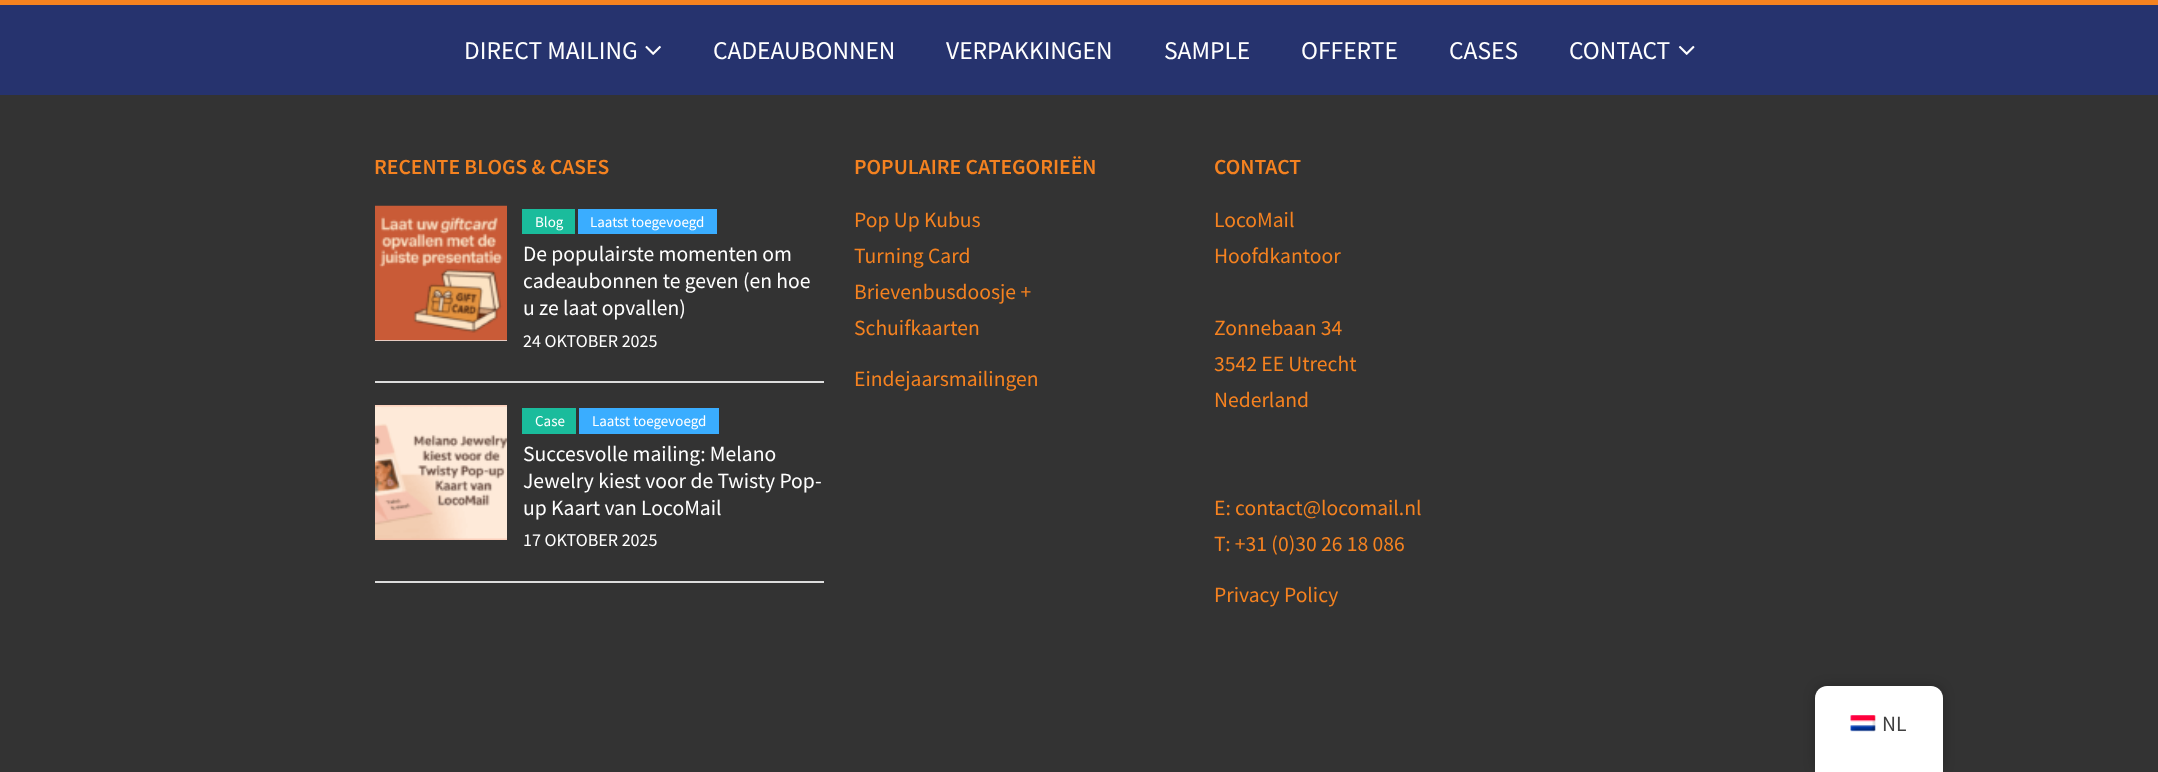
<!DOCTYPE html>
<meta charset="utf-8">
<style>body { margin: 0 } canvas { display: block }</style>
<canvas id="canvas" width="2158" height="772"></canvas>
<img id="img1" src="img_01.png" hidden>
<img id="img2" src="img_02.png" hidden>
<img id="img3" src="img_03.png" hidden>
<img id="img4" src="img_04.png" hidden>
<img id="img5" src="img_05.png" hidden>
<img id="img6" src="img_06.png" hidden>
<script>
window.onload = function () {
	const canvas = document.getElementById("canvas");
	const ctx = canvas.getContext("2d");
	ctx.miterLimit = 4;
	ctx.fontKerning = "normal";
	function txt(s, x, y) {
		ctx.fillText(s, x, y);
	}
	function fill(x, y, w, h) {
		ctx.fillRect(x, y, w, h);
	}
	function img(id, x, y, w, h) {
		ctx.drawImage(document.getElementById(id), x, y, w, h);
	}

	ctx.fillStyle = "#333333";
	fill(0, 0, 2158, 772);
	ctx.fillStyle = "#26336E";
	fill(0, 5, 2158, 90);
	ctx.fillStyle = "#F58220";
	fill(0, 0, 2158, 5);
	img("img1", 645, 45, 16, 10);
	img("img2", 1678, 45, 17, 10);
	ctx.fillStyle = "#DDDDDD";
	fill(375, 381, 449, 2);
	ctx.fillStyle = "#F1F1F1";
	fill(375, 340, 132, 1);
	img("img3", 375, 205, 132, 136);
	ctx.fillStyle = "#1ABC9C";
	fill(522, 209, 53, 25);
	ctx.fillStyle = "#3AADFF";
	fill(578, 209, 139, 25);
	ctx.fillStyle = "#DDDDDD";
	fill(375, 581, 449, 2);
	img("img4", 375, 405, 132, 135);
	ctx.fillStyle = "#1ABC9C";
	fill(522, 408, 54, 26);
	ctx.fillStyle = "#3AADFF";
	fill(579, 408, 140, 26);
	ctx.fillStyle = "rgba(0, 0, 0, 0.25)";
	ctx.filter = "blur(6px)";
	ctx.beginPath();
	ctx.roundRect(1815, 686, 128, 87, 12);
	ctx.fill();
	ctx.filter = "none";
	ctx.fillStyle = "#FFFFFF";
	ctx.beginPath();
	ctx.moveTo(1827, 686);
	ctx.lineTo(1931, 686);
	ctx.bezierCurveTo(1937.5, 686, 1943, 691.5, 1943, 698);
	ctx.lineTo(1943, 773);
	ctx.lineTo(1815, 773);
	ctx.lineTo(1815, 698);
	ctx.bezierCurveTo(1815, 691.5, 1820.5, 686, 1827, 686);
	ctx.closePath();
	ctx.fill();
	img("img5", 1850, 715, 26, 16);
	img("img6", 1850, 715, 25, 17);
	ctx.font = "25.5px Source Sans Pro";
	txt("DIRECT MAILING", 464, 59);
	txt("CADEAUBONNEN", 713, 59);
	txt("VERPAKKINGEN", 946, 59);
	txt("SAMPLE", 1164, 59);
	txt("OFFERTE", 1301, 59);
	txt("CASES", 1449, 59);
	txt("CONTACT", 1569, 59);
	ctx.font = "600 21.6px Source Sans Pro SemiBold";
	ctx.fillStyle = "#F58220";
	txt("RECENTE BLOGS & CASES", 374, 174);
	ctx.font = "15px Source Sans Pro";
	ctx.fillStyle = "#FFFFFF";
	txt("Blog", 535, 227);
	txt("Laatst toegevoegd", 590, 227);
	ctx.font = "21.6px Source Sans Pro";
	txt("De populairste momenten om", 523, 261);
	txt("cadeaubonnen te geven (en hoe", 523, 288);
	txt("u ze laat opvallen)", 523, 315);
	ctx.font = "18px Source Sans Pro";
	txt("24 OKTOBER 2025", 523, 347);
	ctx.font = "15px Source Sans Pro";
	txt("Case", 535, 426);
	txt("Laatst toegevoegd", 592, 426);
	ctx.font = "21.6px Source Sans Pro";
	txt("Succesvolle mailing: Melano", 523, 461);
	txt("Jewelry kiest voor de Twisty Pop-", 523, 488);
	txt("up Kaart van LocoMail", 523, 515);
	ctx.font = "18px Source Sans Pro";
	txt("17 OKTOBER 2025", 523, 546);
	ctx.font = "600 21.6px Source Sans Pro SemiBold";
	ctx.fillStyle = "#F58220";
	txt("POPULAIRE CATEGORIEËN", 854, 174);
	ctx.font = "21.6px Source Sans Pro";
	txt("Pop Up Kubus", 854, 227);
	txt("Turning Card", 854, 263);
	txt("Brievenbusdoosje +", 854, 299);
	txt("Schuifkaarten", 854, 335);
	txt("Eindejaarsmailingen", 854, 386);
	ctx.font = "600 21.6px Source Sans Pro SemiBold";
	txt("CONTACT", 1214, 174);
	ctx.font = "21.6px Source Sans Pro";
	txt("LocoMail", 1214, 227);
	txt("Hoofdkantoor", 1214, 263);
	txt("Zonnebaan 34", 1214, 335);
	txt("3542 EE Utrecht", 1214, 371);
	txt("Nederland", 1214, 407);
	txt("E: contact@locomail.nl", 1214, 515);
	txt("T: +31 (0)30 26 18 086", 1214, 551);
	txt("Privacy Policy", 1214, 602);
	ctx.fillStyle = "#404040";
	txt("NL", 1882, 731);
};
</script>
